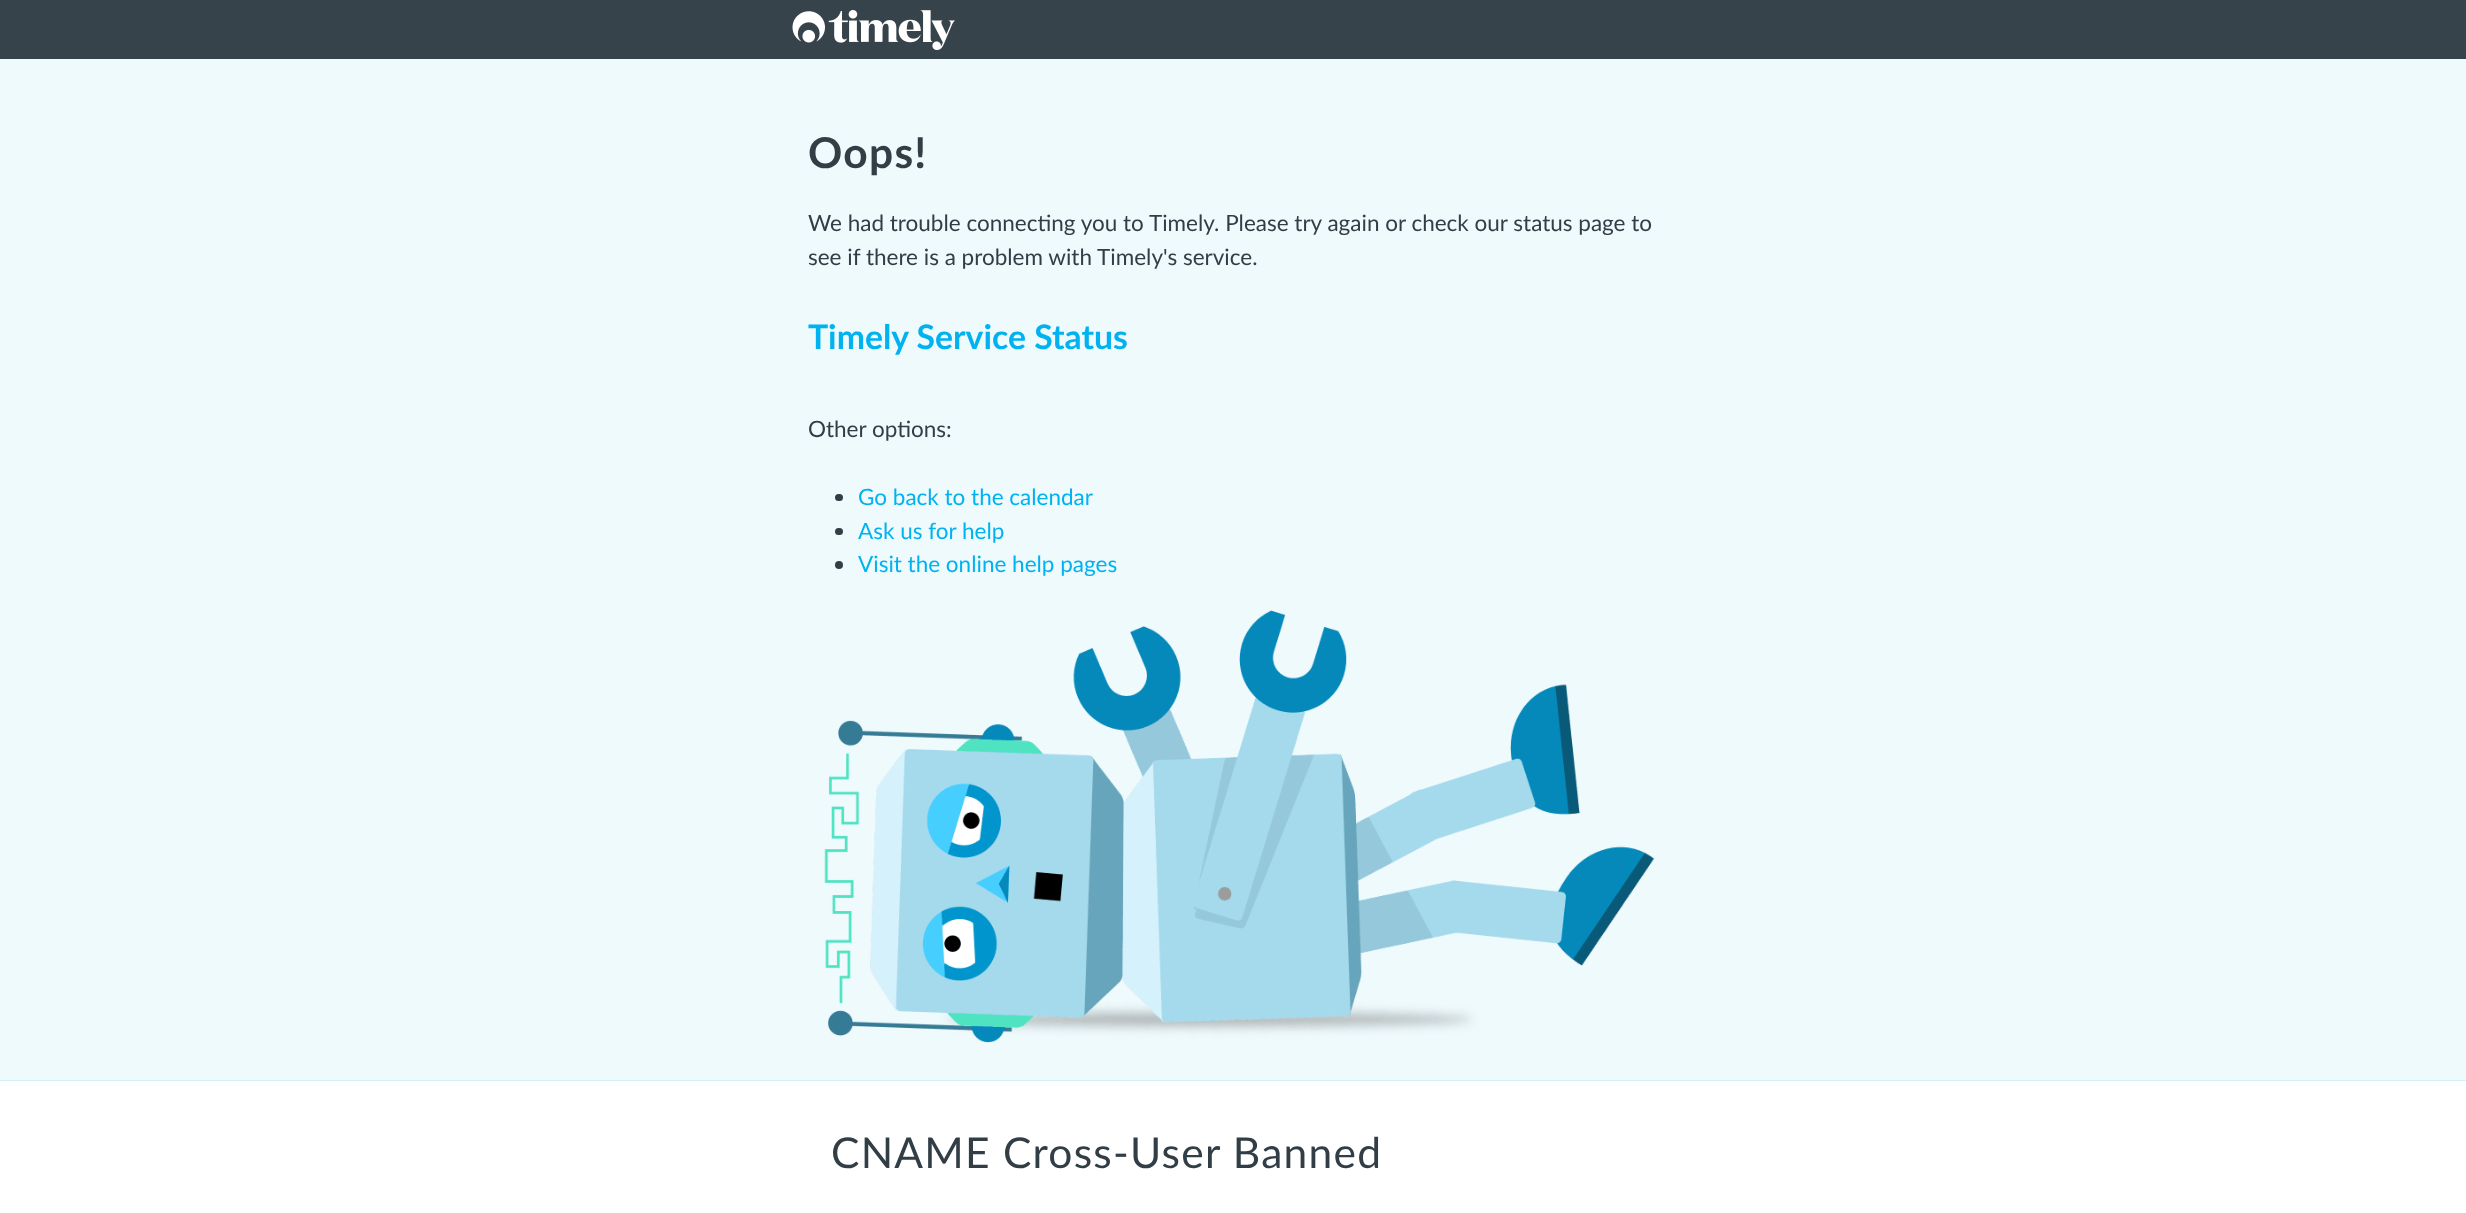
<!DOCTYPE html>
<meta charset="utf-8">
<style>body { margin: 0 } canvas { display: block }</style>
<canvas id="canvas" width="2466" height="1213"></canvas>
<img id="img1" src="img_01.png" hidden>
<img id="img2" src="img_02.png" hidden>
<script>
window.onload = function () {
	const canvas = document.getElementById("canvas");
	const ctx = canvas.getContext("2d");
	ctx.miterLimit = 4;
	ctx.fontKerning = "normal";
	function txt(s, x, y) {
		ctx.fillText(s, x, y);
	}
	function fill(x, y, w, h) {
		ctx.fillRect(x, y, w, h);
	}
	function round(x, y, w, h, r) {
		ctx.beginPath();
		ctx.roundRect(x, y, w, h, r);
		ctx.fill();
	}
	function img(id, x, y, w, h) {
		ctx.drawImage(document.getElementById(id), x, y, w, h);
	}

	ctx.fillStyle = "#FFFFFF";
	fill(0, 0, 2466, 1213);
	ctx.fillStyle = "#36434A";
	fill(0, 0, 2466, 59);
	img("img1", 792, 10, 163, 40);
	ctx.fillStyle = "#EFFAFD";
	fill(0, 59, 2466, 1021);
	ctx.fillStyle = "#D2F0FA";
	fill(0, 1080, 2466, 1);
	ctx.fillStyle = "#323E46";
	round(835, 494, 8, 7, 3.5);
	round(835, 528, 8, 7, 3.5);
	ctx.beginPath();
	ctx.arc(839, 565, 4, 0, Math.PI * 2);
	ctx.fill();
	img("img2", 824, 610, 831, 433);
	ctx.letterSpacing = "1.25px";
	ctx.font = "bold 42.5px Lato";
	txt("Oops!", 808, 168);
	ctx.letterSpacing = "0px";
	ctx.font = "22.5px Lato";
	txt("We had trouble connecting you to Timely. Please try again or check our status page to", 808, 231);
	txt("see if there is a problem with Timely's service.", 808, 265);
	ctx.font = "bold 33.75px Lato";
	ctx.fillStyle = "#00B2F0";
	txt("Timely Service Status", 808, 349);
	ctx.font = "22.5px Lato";
	ctx.fillStyle = "#323E46";
	txt("Other options:", 808, 437);
	ctx.fillStyle = "#00B2F0";
	txt("Go back to the calendar", 858, 505);
	txt("Ask us for help", 858, 539);
	txt("Visit the online help pages", 858, 572);
	ctx.letterSpacing = "1.25px";
	ctx.font = "42.5px Lato";
	ctx.fillStyle = "#323E46";
	txt("CNAME Cross-User Banned", 831, 1168);
};
</script>
